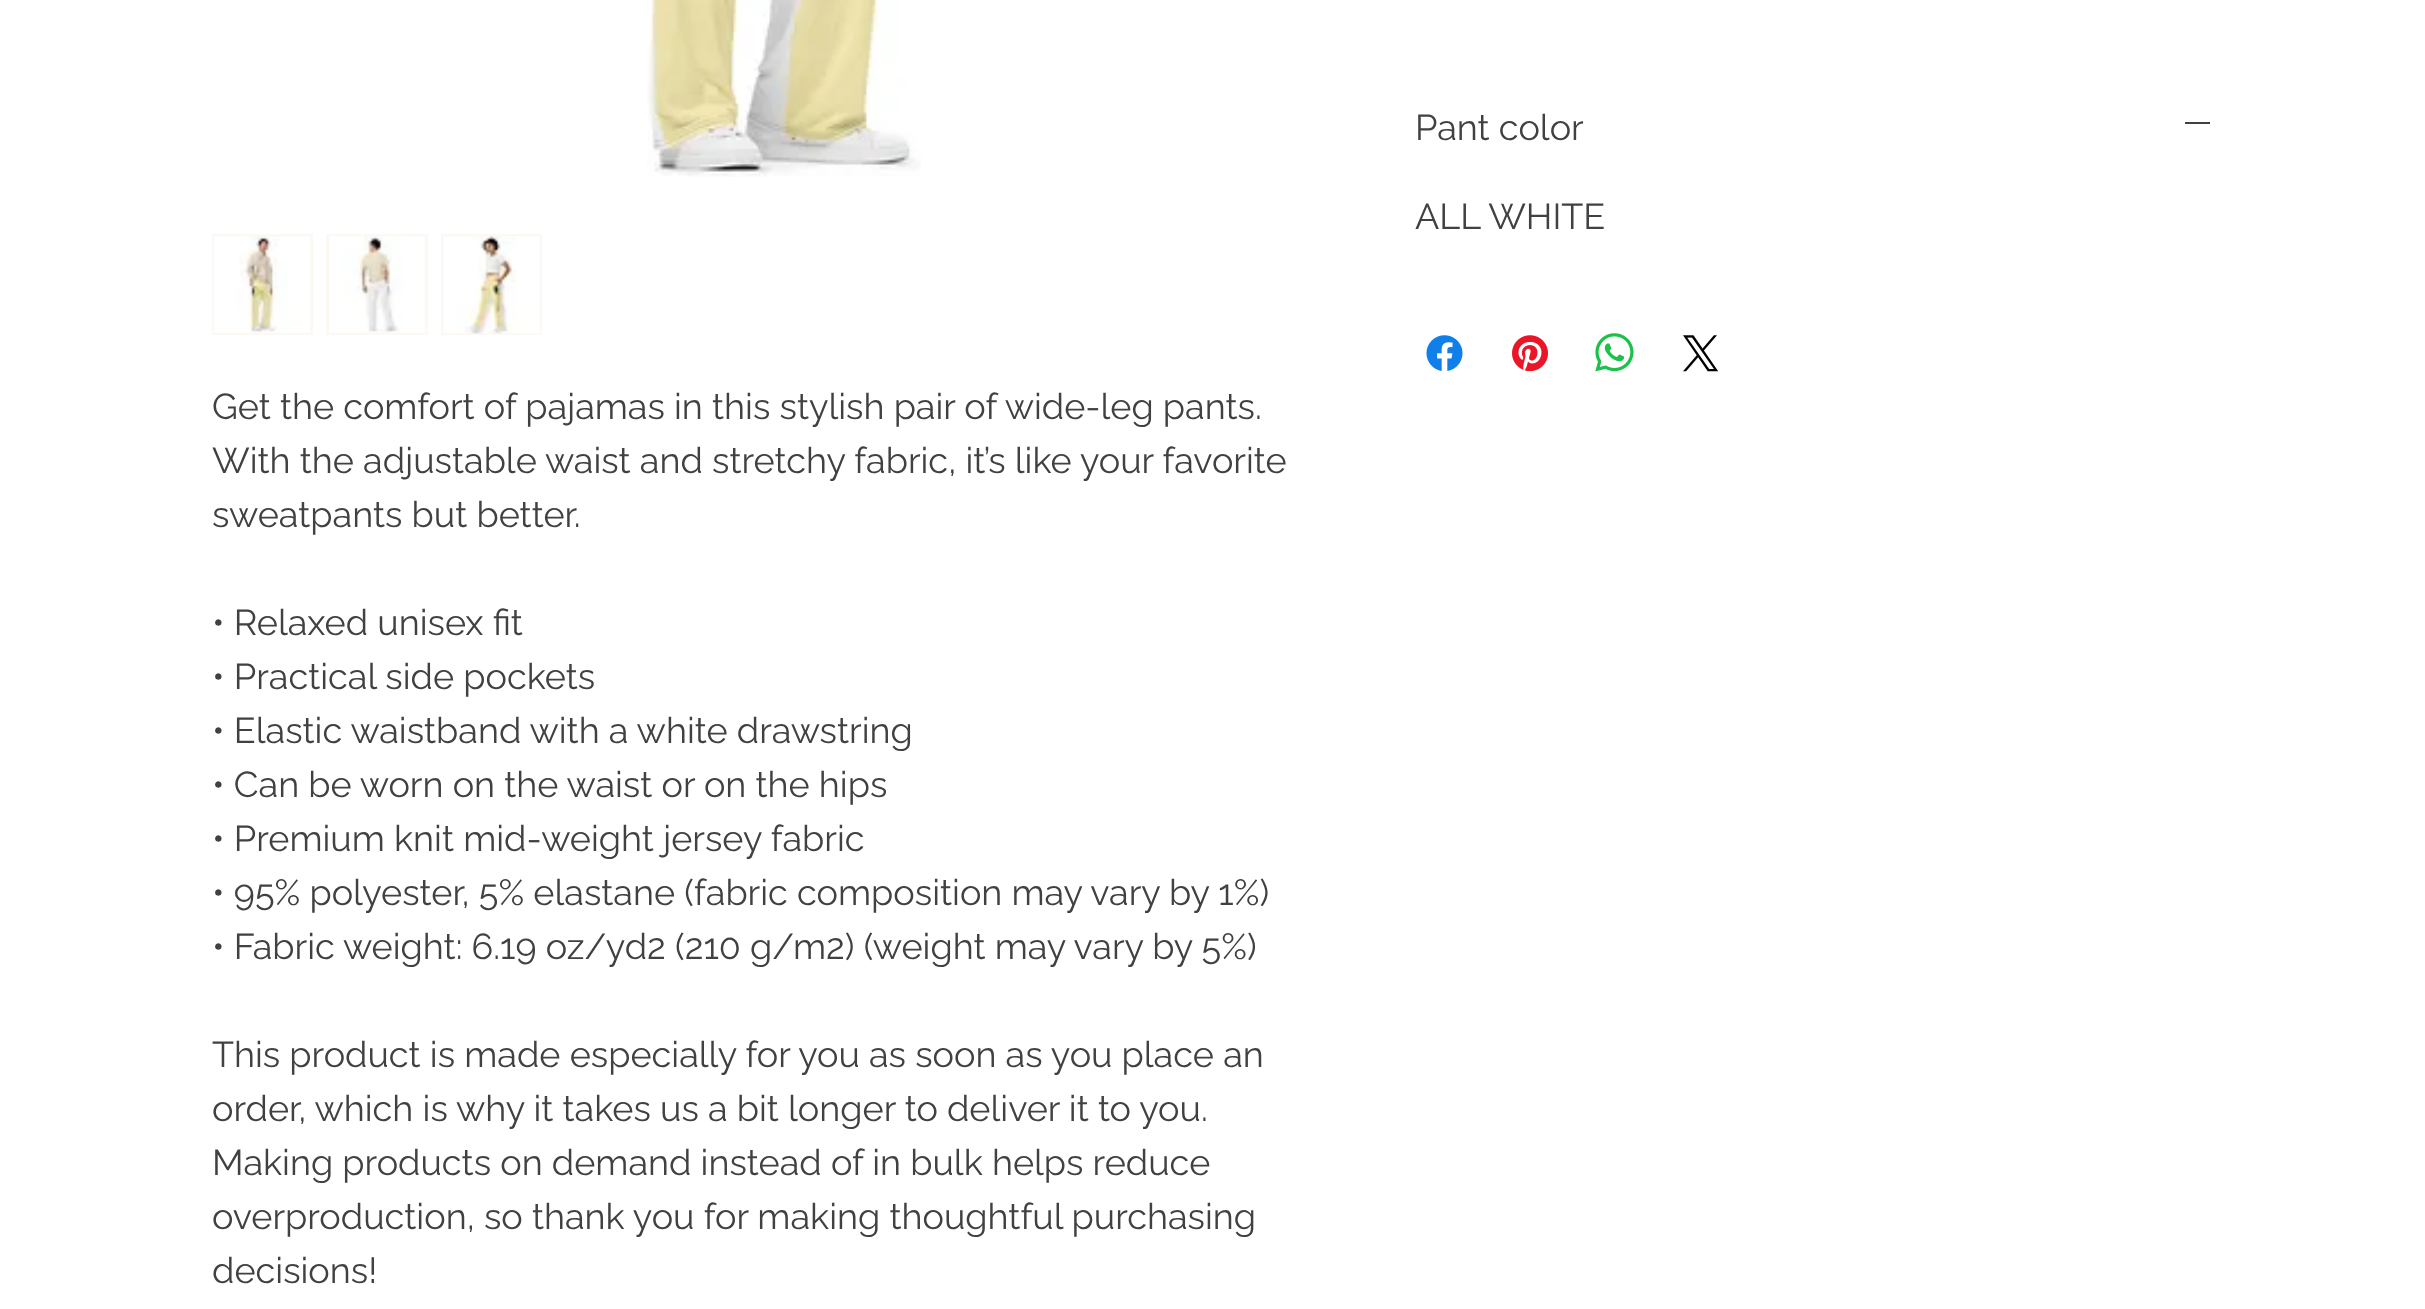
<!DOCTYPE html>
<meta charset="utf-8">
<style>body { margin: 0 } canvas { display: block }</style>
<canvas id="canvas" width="2425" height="1309"></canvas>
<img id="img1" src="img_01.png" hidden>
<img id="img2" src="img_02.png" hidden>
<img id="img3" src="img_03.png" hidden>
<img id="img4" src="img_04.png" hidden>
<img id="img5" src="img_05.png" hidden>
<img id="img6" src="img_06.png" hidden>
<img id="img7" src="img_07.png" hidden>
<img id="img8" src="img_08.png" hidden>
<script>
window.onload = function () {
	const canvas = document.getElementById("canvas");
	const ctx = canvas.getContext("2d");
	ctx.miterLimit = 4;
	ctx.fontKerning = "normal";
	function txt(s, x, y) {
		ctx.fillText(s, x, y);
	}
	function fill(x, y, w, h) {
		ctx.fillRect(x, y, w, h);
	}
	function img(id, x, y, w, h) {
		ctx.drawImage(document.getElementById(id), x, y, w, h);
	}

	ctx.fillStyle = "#FFFFFF";
	fill(0, 0, 2425, 1309);
	ctx.fillStyle = "#414141";
	fill(2185, 122, 25, 2);
	img("img1", 1426, 335, 37, 36);
	img("img2", 1512, 335, 36, 37);
	img("img3", 1595, 333, 39, 39);
	img("img4", 1683, 335, 36, 37);
	img("img5", 647, 0, 274, 177);
	ctx.fillStyle = "#FCF9F4";
	fill(212, 234, 101, 101);
	img("img6", 214, 236, 97, 97);
	fill(326, 234, 102, 101);
	img("img7", 329, 236, 96, 97);
	fill(441, 234, 101, 101);
	img("img8", 443, 236, 97, 98);
	ctx.font = "36px Raleway";
	ctx.fillStyle = "#414141";
	txt("Pant color", 1415, 140);
	txt("ALL WHITE", 1415, 229);
	txt("Get the comfort of pajamas in this stylish pair of wide-leg pants.", 212, 419);
	txt("With the adjustable waist and stretchy fabric, it’s like your favorite", 212, 473);
	txt("sweatpants but better.", 212, 527);
	txt("• Relaxed unisex fit", 212, 635);
	txt("• Practical side pockets", 212, 689);
	txt("• Elastic waistband with a white drawstring", 212, 743);
	txt("• Can be worn on the waist or on the hips", 212, 797);
	txt("• Premium knit mid-weight jersey fabric", 212, 851);
	txt("• 95% polyester, 5% elastane (fabric composition may vary by 1%)", 212, 905);
	txt("• Fabric weight: 6.19 oz/yd2 (210 g/m2) (weight may vary by 5%)", 212, 959);
	txt("This product is made especially for you as soon as you place an", 212, 1067);
	txt("order, which is why it takes us a bit longer to deliver it to you.", 212, 1121);
	txt("Making products on demand instead of in bulk helps reduce", 212, 1175);
	txt("overproduction, so thank you for making thoughtful purchasing", 212, 1229);
	txt("decisions!", 212, 1283);
};
</script>
